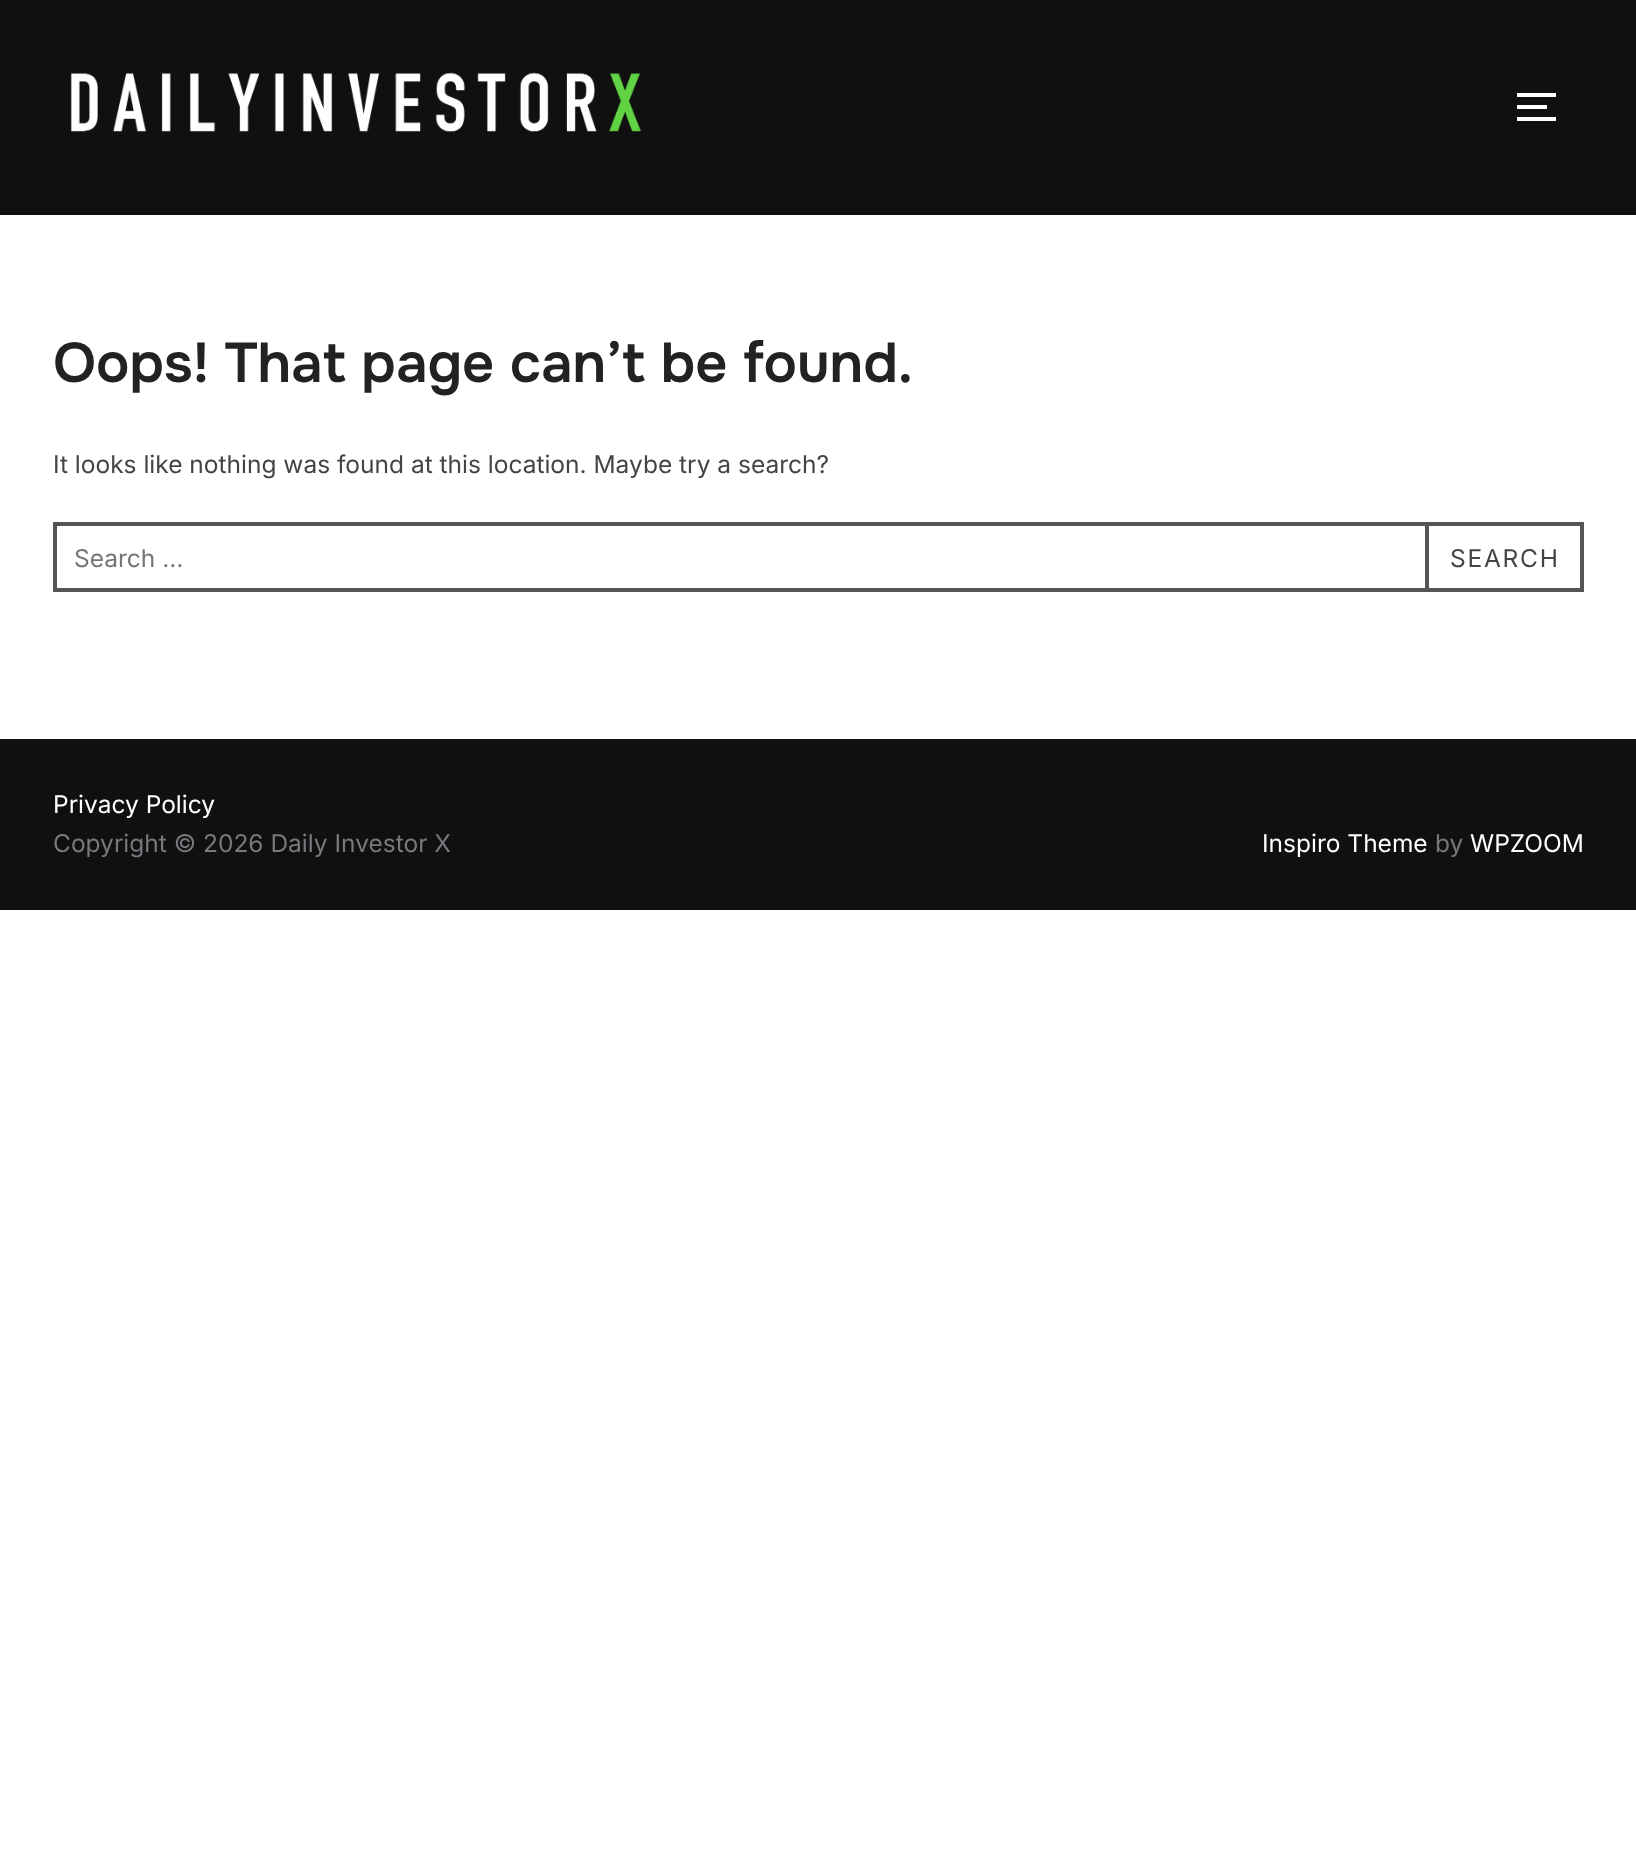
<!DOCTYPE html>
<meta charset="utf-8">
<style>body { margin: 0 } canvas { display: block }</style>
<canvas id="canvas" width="1636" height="1860"></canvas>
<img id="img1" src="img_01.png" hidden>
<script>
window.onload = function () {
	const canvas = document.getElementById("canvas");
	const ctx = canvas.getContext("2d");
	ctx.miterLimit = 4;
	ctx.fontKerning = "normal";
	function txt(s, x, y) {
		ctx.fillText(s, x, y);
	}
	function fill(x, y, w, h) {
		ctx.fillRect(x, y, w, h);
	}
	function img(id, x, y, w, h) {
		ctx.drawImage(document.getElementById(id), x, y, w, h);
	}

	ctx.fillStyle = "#FFFFFF";
	fill(0, 0, 1636, 1860);
	ctx.fillStyle = "#101010";
	fill(0, 0, 1636, 215);
	img("img1", 70, 72, 572, 60);
	ctx.fillStyle = "#FFFFFF";
	fill(1517, 93, 39, 4);
	fill(1517, 105, 30, 4);
	fill(1517, 117, 39, 4);
	ctx.strokeStyle = "#565555";
	ctx.lineWidth = 4;
	ctx.strokeRect(55, 524, 1527, 66);
	ctx.strokeRect(1427, 524, 155, 66);
	ctx.fillStyle = "#101010";
	fill(0, 739, 1636, 171);
	ctx.font = "600 56px Onest";
	ctx.fillStyle = "#222222";
	txt("Oops! That page can’t be found.", 53, 382);
	ctx.font = "24.5px Inter";
	ctx.fillStyle = "#444444";
	txt("It looks like nothing was found at this location. Maybe try a search?", 53, 473);
	ctx.fillStyle = "#757575";
	txt("Search …", 74, 567);
	ctx.letterSpacing = "1.75px";
	ctx.fillStyle = "#444444";
	txt("SEARCH", 1450, 567);
	ctx.letterSpacing = "0px";
	ctx.fillStyle = "#FFFFFF";
	txt("Privacy Policy", 53, 813);
	ctx.fillStyle = "#78787F";
	txt("Copyright © 2026 Daily Investor X", 53, 852);
	ctx.fillStyle = "#FFFFFF";
	txt("Inspiro Theme", 1262, 852);
	ctx.fillStyle = "#78787F";
	txt("by", 1435, 852);
	ctx.fillStyle = "#FFFFFF";
	txt("WPZOOM", 1470, 852);
};
</script>
